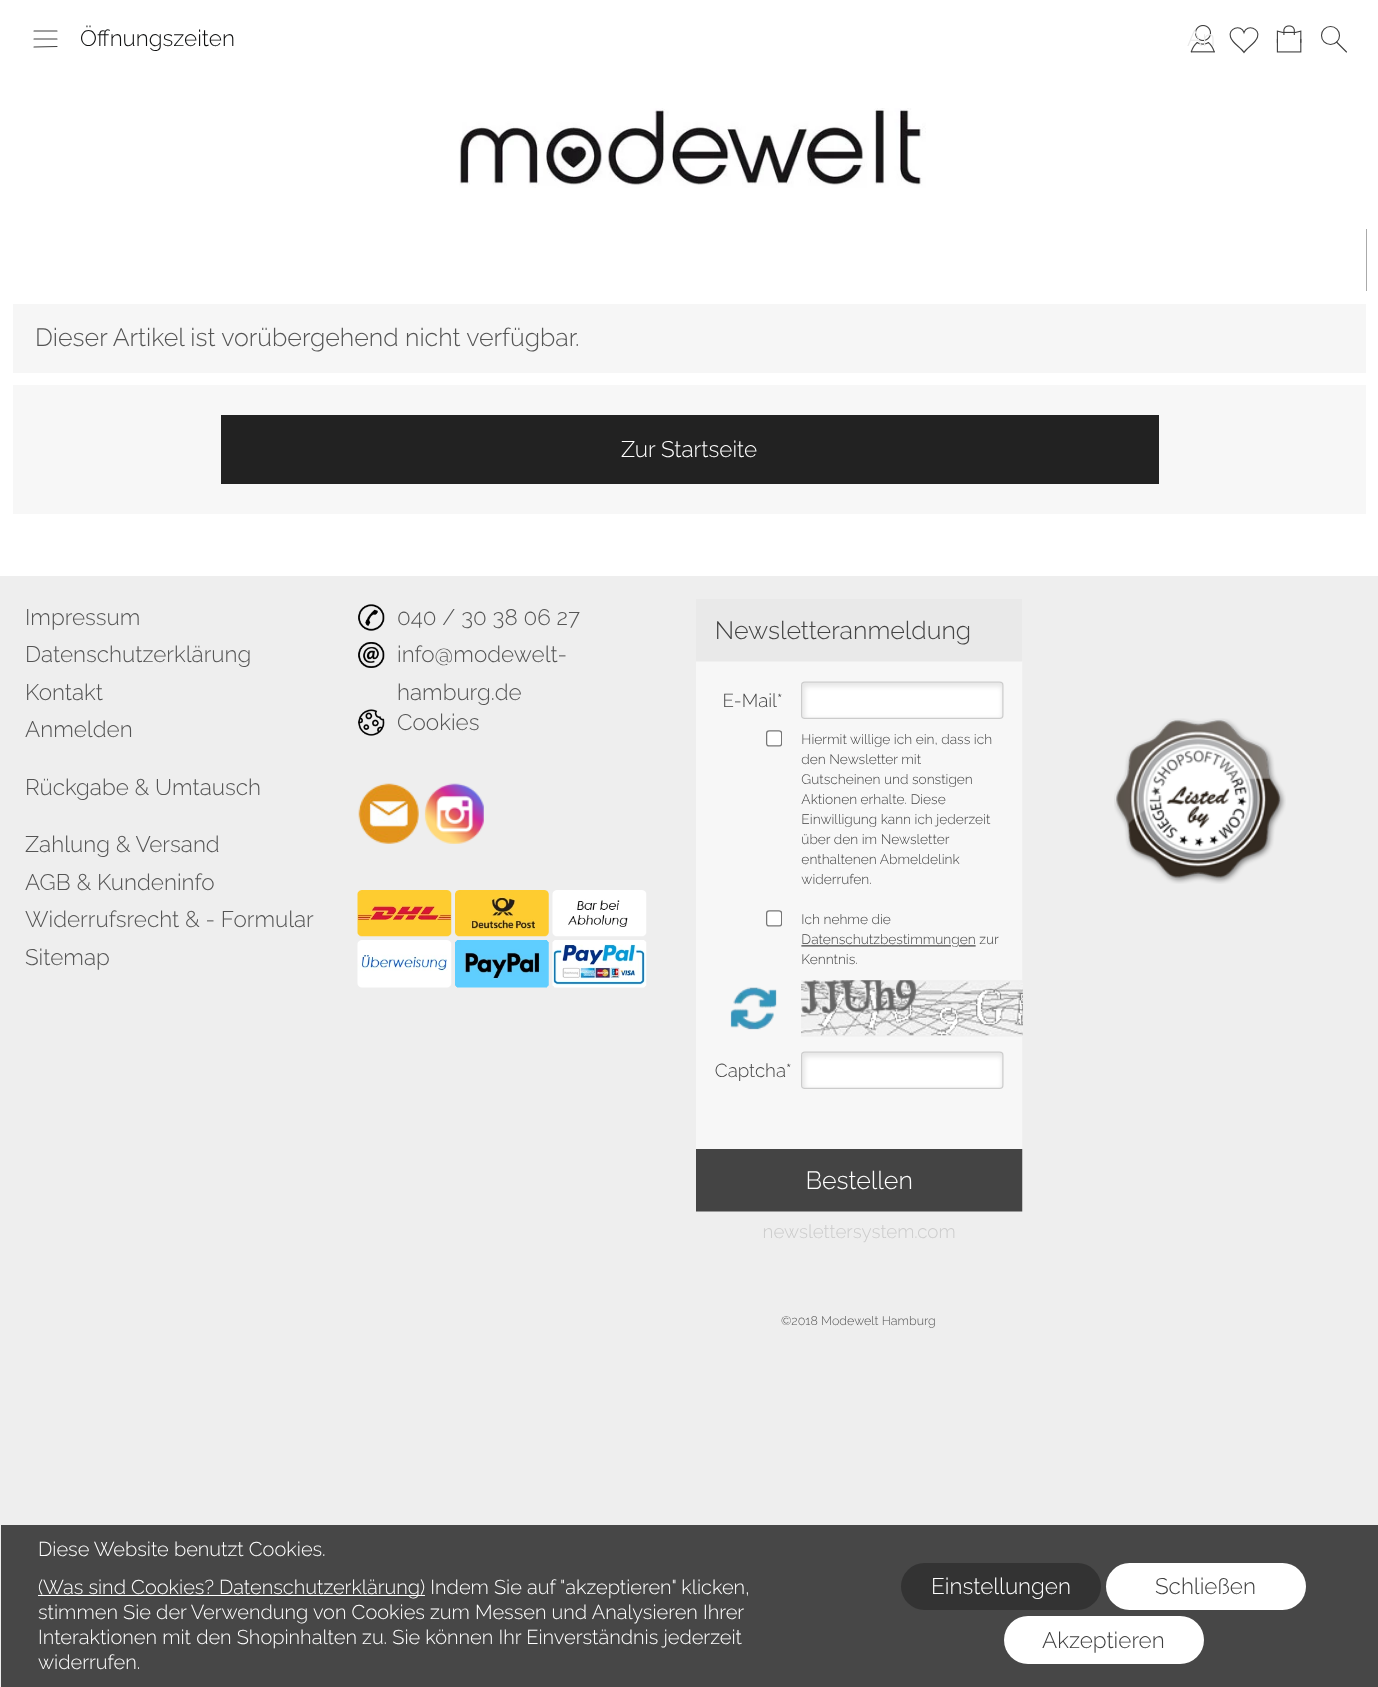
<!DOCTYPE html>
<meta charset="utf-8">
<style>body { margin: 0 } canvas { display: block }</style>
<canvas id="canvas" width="1378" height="1687"></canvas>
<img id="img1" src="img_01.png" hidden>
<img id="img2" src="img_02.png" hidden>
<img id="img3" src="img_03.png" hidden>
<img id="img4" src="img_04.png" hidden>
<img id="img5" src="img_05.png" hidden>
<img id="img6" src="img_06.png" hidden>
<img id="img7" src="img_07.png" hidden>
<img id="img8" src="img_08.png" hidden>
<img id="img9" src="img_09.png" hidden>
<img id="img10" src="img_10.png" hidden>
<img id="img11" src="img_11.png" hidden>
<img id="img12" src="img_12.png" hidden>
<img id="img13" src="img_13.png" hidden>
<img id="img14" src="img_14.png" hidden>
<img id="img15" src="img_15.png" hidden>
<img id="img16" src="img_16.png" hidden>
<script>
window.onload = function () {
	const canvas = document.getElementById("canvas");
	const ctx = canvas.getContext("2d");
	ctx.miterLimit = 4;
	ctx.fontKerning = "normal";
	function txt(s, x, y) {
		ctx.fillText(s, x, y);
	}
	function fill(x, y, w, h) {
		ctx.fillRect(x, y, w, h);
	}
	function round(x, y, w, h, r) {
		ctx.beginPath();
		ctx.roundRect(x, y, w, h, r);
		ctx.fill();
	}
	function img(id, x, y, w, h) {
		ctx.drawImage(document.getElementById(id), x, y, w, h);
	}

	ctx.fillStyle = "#FFFFFF";
	fill(0, 0, 1378, 1687);
	ctx.beginPath();
	ctx.moveTo(34, 47);
	ctx.lineTo(57, 46.5);
	ctx.moveTo(34, 39);
	ctx.lineTo(57, 39);
	ctx.moveTo(34, 31);
	ctx.lineTo(57, 31);
	ctx.strokeStyle = "#3F3F3F";
	ctx.lineWidth = 1.1;
	ctx.lineCap = "round";
	ctx.stroke();
	img("img1", 1190, 25, 25, 28);
	ctx.beginPath();
	ctx.moveTo(1244, 52.5);
	ctx.bezierCurveTo(1240.5, 47, 1232.5, 43.5, 1230.5, 37);
	ctx.bezierCurveTo(1227.5, 28.5, 1241, 23.5, 1244, 32.5);
	ctx.bezierCurveTo(1247, 23.5, 1260.5, 28.5, 1257.5, 37);
	ctx.bezierCurveTo(1255.5, 43.5, 1247.5, 47, 1244, 52.5);
	ctx.closePath();
	ctx.lineCap = "butt";
	ctx.stroke();
	img("img2", 1276, 25, 26, 28);
	ctx.beginPath();
	ctx.arc(1330.5, 35.5, 9, 0, Math.PI * 2);
	ctx.stroke();
	ctx.beginPath();
	ctx.moveTo(1336.5, 42);
	ctx.lineTo(1346.5, 52);
	ctx.lineCap = "round";
	ctx.stroke();
	img("img3", 459, 108, 467, 80);
	ctx.fillStyle = "#AAAAAA";
	fill(1366, 229, 1, 62);
	ctx.fillStyle = "#F6F6F6";
	fill(13, 304, 1353, 69);
	ctx.fillStyle = "#F7F7F7";
	fill(13, 385, 1353, 129);
	ctx.fillStyle = "#222222";
	fill(221, 415, 938, 69);
	ctx.fillStyle = "#EEEEEE";
	fill(0, 576, 1378, 1111);
	img("img4", 358, 604, 27, 27);
	img("img5", 358, 642, 27, 26);
	img("img6", 358, 709, 27, 27);
	img("img7", 358, 783, 61, 61);
	img("img8", 424, 783, 60, 61);
	img("img9", 357, 890, 95, 47);
	img("img10", 455, 890, 94, 47);
	img("img11", 552, 890, 95, 47);
	img("img12", 357, 940, 95, 48);
	img("img13", 455, 940, 94, 48);
	img("img14", 552, 940, 95, 48);
	img("img15", 1114, 718, 172, 166);
	img("img16", 696, 599, 327, 644);
	ctx.fillStyle = "rgba(0, 0, 0, 0.7)";
	fill(1, 1525, 1377, 162);
	ctx.fillStyle = "#FFFFFF";
	fill(38, 1595, 387, 1);
	ctx.fillStyle = "#333333";
	round(901, 1563, 200, 47, 23.5);
	ctx.fillStyle = "#FFFFFF";
	round(1106, 1563, 200, 47, 23.5);
	round(1004, 1616, 200, 48, 24);
	ctx.font = "300 22.5px Raleway";
	ctx.fillStyle = "#0E0F0F";
	txt("Öffnungszeiten", 80, 46);
	ctx.fillStyle = "#E9E9E9";
	txt("An", 1187, 46);
	ctx.font = "300 25px Raleway";
	ctx.fillStyle = "#555555";
	txt("Dieser Artikel ist vorübergehend nicht verfügbar.", 35, 346);
	ctx.font = "300 22.5px Raleway";
	ctx.fillStyle = "#FFFFFF";
	txt("Zur Startseite", 621, 457);
	ctx.fillStyle = "#555555";
	txt("Impressum", 25, 625);
	txt("Datenschutzerklärung", 25, 662);
	txt("Kontakt", 25, 700);
	txt("Anmelden", 25, 737);
	txt("Rückgabe & Umtausch", 25, 795);
	txt("Zahlung & Versand", 25, 852);
	txt("AGB & Kundeninfo", 25, 890);
	txt("Widerrufsrecht & - Formular", 25, 927);
	txt("Sitemap", 25, 965);
	txt("040 / 30 38 06 27", 397, 625);
	txt("info@modewelt-", 397, 662);
	txt("hamburg.de", 397, 700);
	txt("Cookies", 397, 730);
	ctx.font = "300 12.5px Raleway";
	txt("©2018 Modewelt Hamburg", 781, 1325);
	ctx.font = "300 20px Raleway";
	ctx.fillStyle = "#FFFFFF";
	txt("Diese Website benutzt Cookies.", 38, 1556);
	txt("(Was sind Cookies? Datenschutzerklärung) Indem Sie auf \"akzeptieren\" klicken,", 38, 1594);
	txt("stimmen Sie der Verwendung von Cookies zum Messen und Analysieren Ihrer", 38, 1619);
	txt("Interaktionen mit den Shopinhalten zu. Sie können Ihr Einverständnis jederzeit", 38, 1644);
	txt("widerrufen.", 38, 1669);
	ctx.font = "300 22.5px Raleway";
	txt("Einstellungen", 931, 1594);
	ctx.fillStyle = "#3E3E3E";
	txt("Schließen", 1155, 1594);
	txt("Akzeptieren", 1042, 1648);
};
</script>
